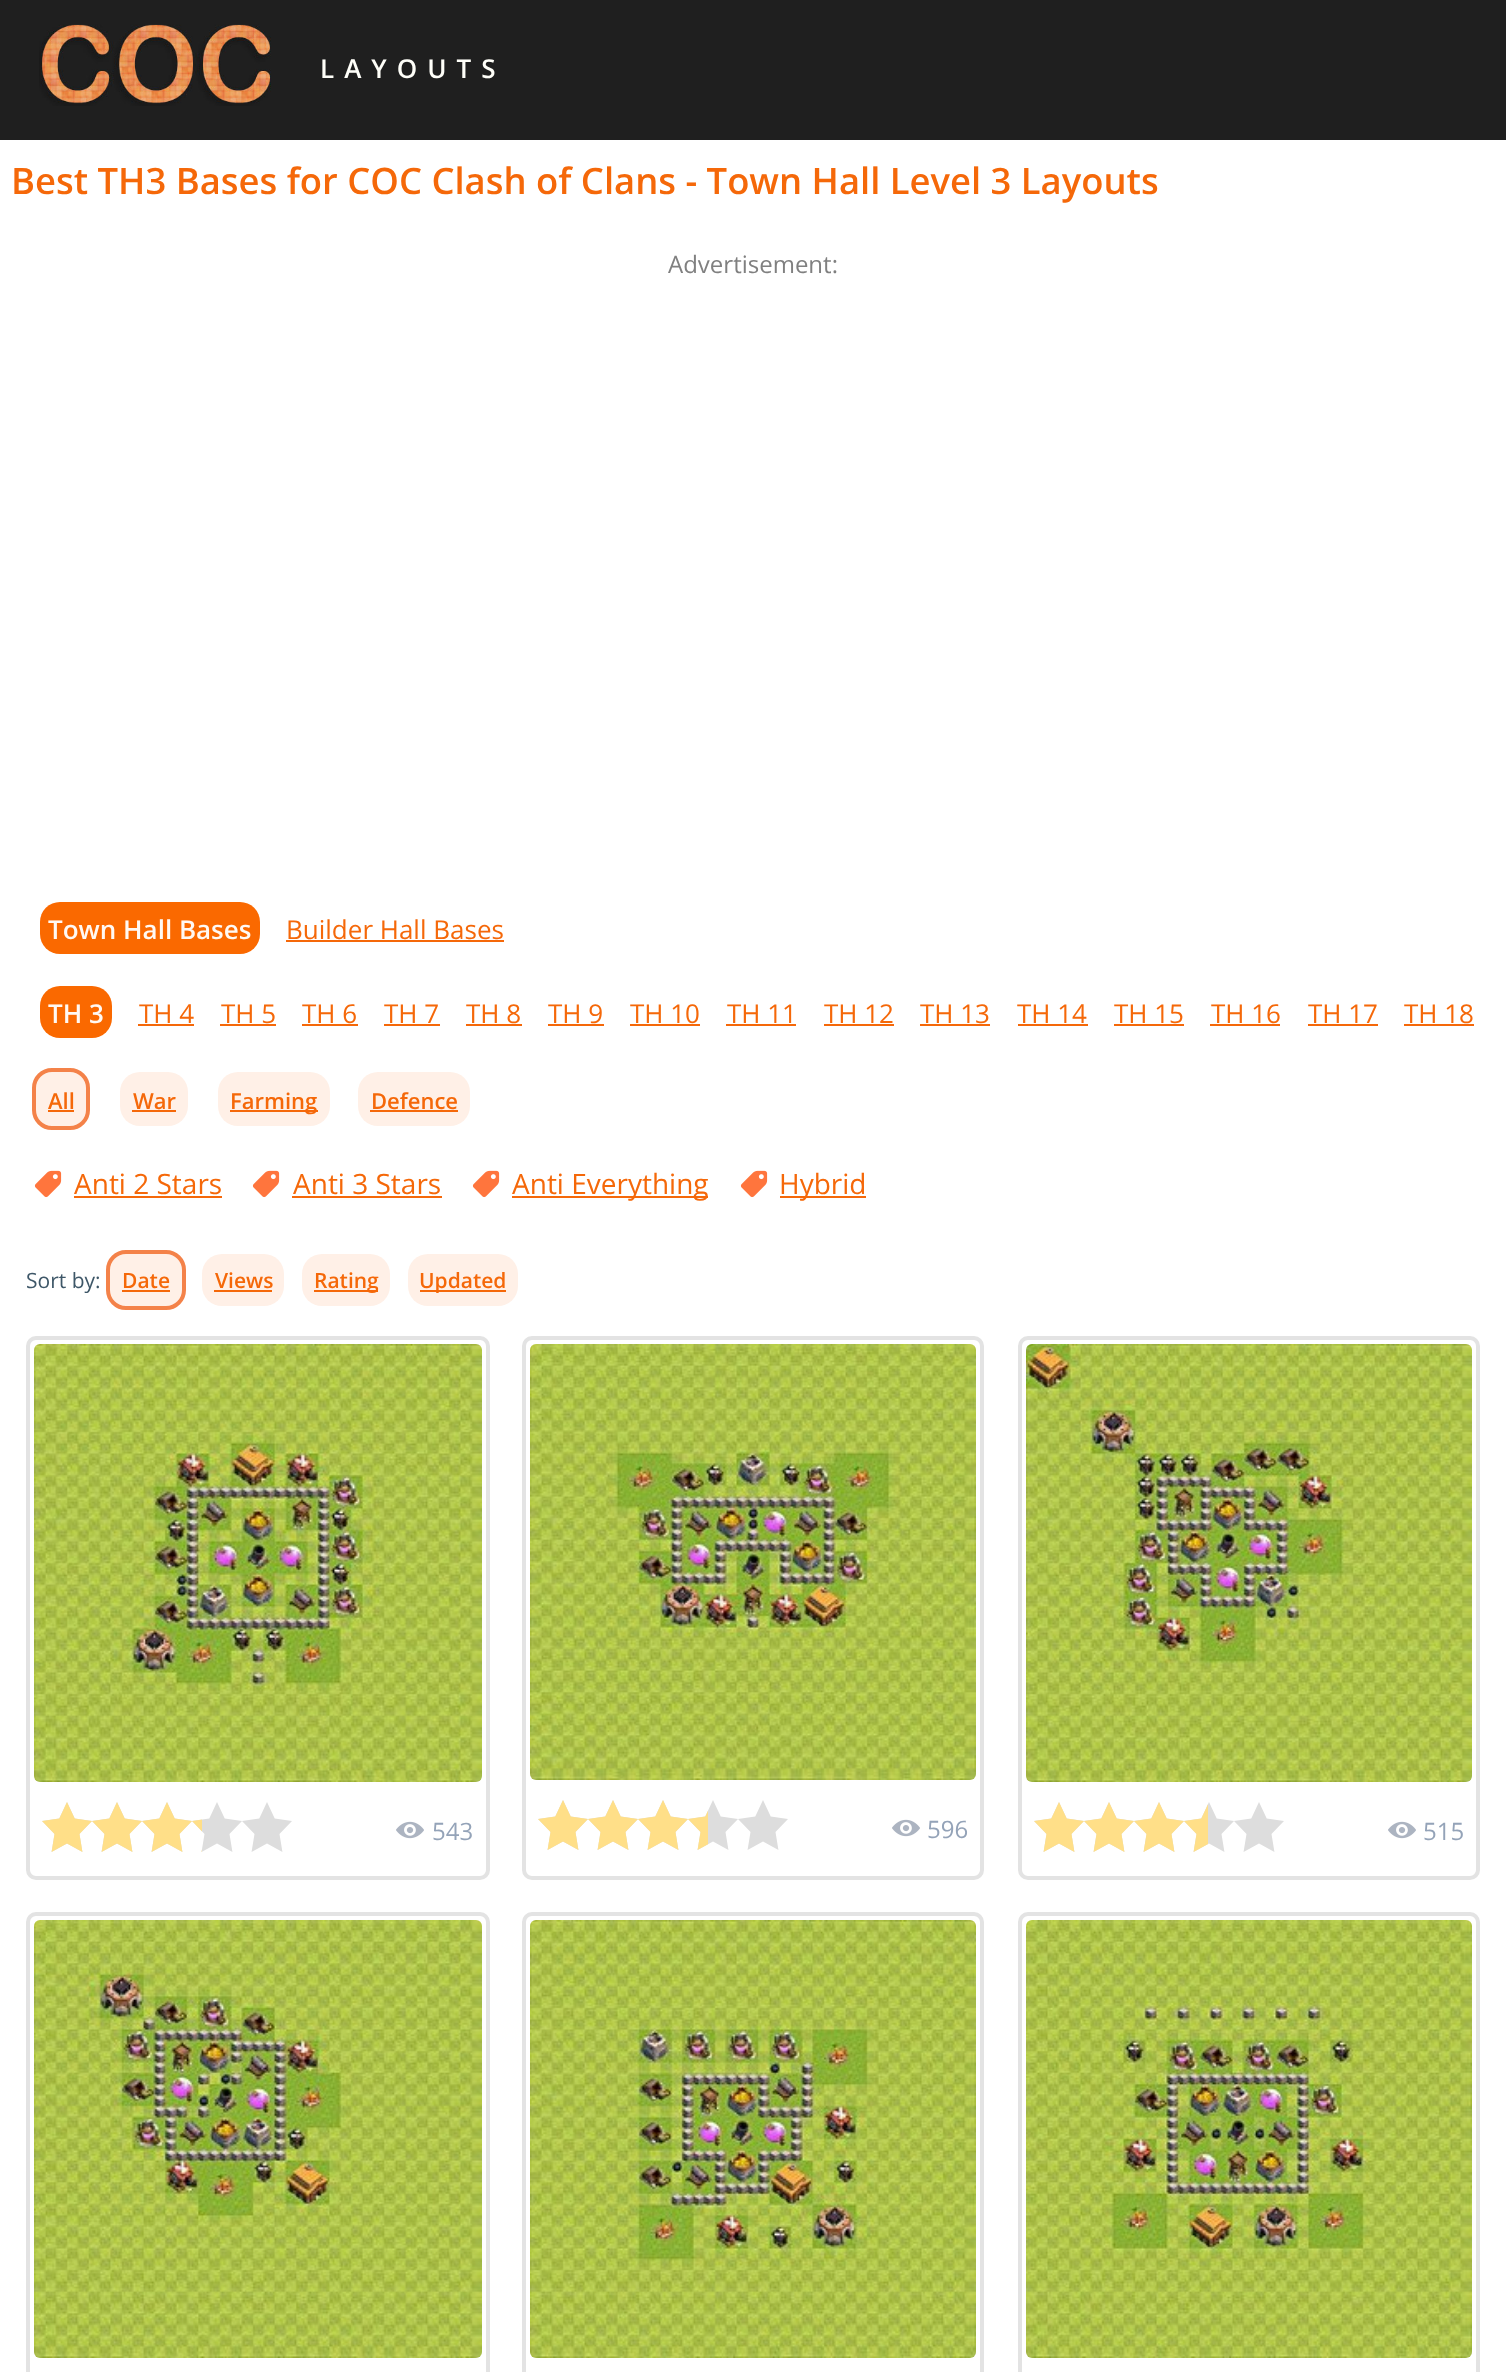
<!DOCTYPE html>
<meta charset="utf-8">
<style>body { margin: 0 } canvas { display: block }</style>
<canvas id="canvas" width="1506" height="2372"></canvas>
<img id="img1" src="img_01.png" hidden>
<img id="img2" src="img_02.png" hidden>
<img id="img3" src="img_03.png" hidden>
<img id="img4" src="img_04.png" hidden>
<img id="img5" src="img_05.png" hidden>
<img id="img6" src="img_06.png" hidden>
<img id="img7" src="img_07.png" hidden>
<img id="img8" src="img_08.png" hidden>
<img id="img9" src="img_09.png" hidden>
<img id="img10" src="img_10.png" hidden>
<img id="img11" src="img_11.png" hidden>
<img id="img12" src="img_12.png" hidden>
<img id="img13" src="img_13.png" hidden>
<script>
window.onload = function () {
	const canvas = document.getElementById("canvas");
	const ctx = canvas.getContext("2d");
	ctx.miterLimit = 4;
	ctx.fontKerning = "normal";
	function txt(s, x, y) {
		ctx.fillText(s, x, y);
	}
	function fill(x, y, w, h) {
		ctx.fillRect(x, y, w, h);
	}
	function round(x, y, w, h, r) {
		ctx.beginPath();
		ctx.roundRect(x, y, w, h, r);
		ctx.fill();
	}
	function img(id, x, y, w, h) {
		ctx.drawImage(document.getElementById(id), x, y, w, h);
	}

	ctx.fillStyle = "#1F1F1F";
	fill(0, 0, 1506, 2372);
	img("img1", 39, 24, 232, 82);
	ctx.fillStyle = "#FFFFFF";
	fill(0, 140, 1506, 2232);
	ctx.fillStyle = "#FA6900";
	round(40, 902, 220, 52, 20);
	ctx.fillStyle = "#F56809";
	fill(286, 940, 218, 2);
	ctx.fillStyle = "#FA6900";
	round(40, 986, 72, 52, 20);
	ctx.fillStyle = "#F56809";
	fill(138, 1024, 56, 2);
	fill(220, 1024, 56, 2);
	fill(302, 1024, 56, 2);
	fill(384, 1024, 56, 2);
	fill(466, 1024, 56, 2);
	fill(548, 1024, 56, 2);
	fill(630, 1024, 70, 2);
	fill(726, 1024, 70, 2);
	fill(824, 1024, 70, 2);
	fill(920, 1024, 70, 2);
	fill(1018, 1024, 70, 2);
	fill(1114, 1024, 70, 2);
	fill(1210, 1024, 70, 2);
	fill(1308, 1024, 70, 2);
	fill(1404, 1024, 70, 2);
	ctx.fillStyle = "#FFF0E7";
	ctx.beginPath();
	ctx.roundRect(34, 1070, 54, 58, 18);
	ctx.fill();
	ctx.strokeStyle = "#F48249";
	ctx.lineWidth = 4;
	ctx.stroke();
	ctx.fillStyle = "#F56809";
	fill(48, 1110, 26, 2);
	ctx.fillStyle = "#FFF0E7";
	round(120, 1072, 68, 54, 20);
	ctx.fillStyle = "#F56809";
	fill(132, 1110, 44, 2);
	ctx.fillStyle = "#FFF0E7";
	round(218, 1072, 112, 54, 20);
	ctx.fillStyle = "#F56809";
	fill(230, 1110, 88, 2);
	ctx.fillStyle = "#FFF0E7";
	round(358, 1072, 112, 54, 20);
	ctx.fillStyle = "#F56809";
	fill(370, 1110, 88, 2);
	img("img2", 34, 1170, 28, 28);
	fill(74, 1196, 148, 2);
	img("img2", 252, 1170, 28, 28);
	fill(292, 1196, 150, 2);
	img("img2", 472, 1170, 28, 28);
	fill(512, 1196, 196, 2);
	img("img2", 740, 1170, 28, 28);
	fill(780, 1196, 86, 2);
	ctx.fillStyle = "#FFF0E7";
	ctx.beginPath();
	ctx.roundRect(108, 1252, 76, 56, 18);
	ctx.fill();
	ctx.stroke();
	ctx.fillStyle = "#F56809";
	fill(122, 1290, 48, 2);
	ctx.fillStyle = "#FFF0E7";
	round(202, 1254, 82, 52, 20);
	ctx.fillStyle = "#F56809";
	fill(214, 1290, 58, 2);
	ctx.fillStyle = "#FFF0E7";
	round(302, 1254, 88, 52, 20);
	ctx.fillStyle = "#F56809";
	fill(314, 1290, 64, 2);
	ctx.fillStyle = "#FFF0E7";
	round(408, 1254, 110, 52, 20);
	ctx.fillStyle = "#F56809";
	fill(420, 1290, 86, 2);
	ctx.beginPath();
	ctx.roundRect(28, 1338, 460, 540, 8);
	ctx.strokeStyle = "#E3E3E3";
	ctx.stroke();
	img("img3", 34, 1344, 448, 438);
	img("img4", 42, 1802, 250, 50);
	img("img5", 42, 1802, 160, 50);
	img("img6", 396, 1821, 28, 18);
	ctx.beginPath();
	ctx.roundRect(524, 1338, 458, 540, 8);
	ctx.stroke();
	img("img7", 530, 1344, 446, 436);
	img("img4", 538, 1800, 250, 50);
	img("img8", 538, 1800, 170, 50);
	img("img6", 892, 1819, 28, 18);
	ctx.beginPath();
	ctx.roundRect(1020, 1338, 458, 540, 8);
	ctx.stroke();
	img("img9", 1026, 1344, 446, 438);
	img("img4", 1034, 1802, 250, 50);
	img("img10", 1034, 1802, 174, 50);
	img("img6", 1388, 1821, 28, 18);
	ctx.beginPath();
	ctx.roundRect(28, 1914, 460, 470, 8);
	ctx.stroke();
	img("img11", 34, 1920, 448, 438);
	ctx.beginPath();
	ctx.roundRect(524, 1914, 458, 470, 8);
	ctx.stroke();
	img("img12", 530, 1920, 446, 438);
	ctx.beginPath();
	ctx.roundRect(1020, 1914, 458, 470, 8);
	ctx.stroke();
	img("img13", 1026, 1920, 446, 438);
	ctx.letterSpacing = "10px";
	ctx.font = "600 26px Open Sans";
	ctx.fillStyle = "#FFFFF9";
	txt("LAYOUTS", 320, 78);
	ctx.letterSpacing = "0px";
	ctx.font = "600 36.4px Open Sans";
	ctx.fillStyle = "#F56809";
	txt("Best TH3 Bases for COC Clash of Clans - Town Hall Level 3 Layouts", 11, 194);
	ctx.font = "24px Open Sans";
	ctx.fillStyle = "#808080";
	txt("Advertisement:", 668, 273);
	ctx.font = "600 26px Open Sans";
	ctx.fillStyle = "#FFF9F4";
	txt("Town Hall Bases", 48, 939);
	ctx.font = "26px Open Sans";
	ctx.fillStyle = "#F56809";
	txt("Builder Hall Bases", 286, 939);
	ctx.font = "600 26px Open Sans";
	ctx.fillStyle = "#FFF9F4";
	txt("TH 3", 48, 1023);
	ctx.font = "26px Open Sans";
	ctx.fillStyle = "#F56809";
	txt("TH 4", 139, 1023);
	txt("TH 5", 221, 1023);
	txt("TH 6", 302, 1023);
	txt("TH 7", 384, 1023);
	txt("TH 8", 466, 1023);
	txt("TH 9", 548, 1023);
	txt("TH 10", 630, 1023);
	txt("TH 11", 727, 1023);
	txt("TH 12", 824, 1023);
	txt("TH 13", 920, 1023);
	txt("TH 14", 1017, 1023);
	txt("TH 15", 1114, 1023);
	txt("TH 16", 1211, 1023);
	txt("TH 17", 1308, 1023);
	txt("TH 18", 1404, 1023);
	ctx.font = "600 22px Open Sans";
	txt("All", 48, 1109);
	txt("War", 133, 1109);
	txt("Farming", 230, 1109);
	txt("Defence", 371, 1109);
	ctx.font = "28px Open Sans";
	txt("Anti 2 Stars", 74, 1194);
	txt("Anti 3 Stars", 293, 1194);
	txt("Anti Everything", 512, 1194);
	txt("Hybrid", 779, 1194);
	ctx.font = "21px Open Sans";
	ctx.fillStyle = "#3E5768";
	txt("Sort by:", 26, 1288);
	ctx.font = "600 21px Open Sans";
	ctx.fillStyle = "#F56809";
	txt("Date", 122, 1288);
	txt("Views", 215, 1288);
	txt("Rating", 314, 1288);
	txt("Updated", 419, 1288);
	ctx.font = "24px Open Sans";
	ctx.fillStyle = "#94A3B8";
	txt("543", 432, 1840);
	txt("596", 927, 1838);
	txt("515", 1423, 1840);
};
</script>
